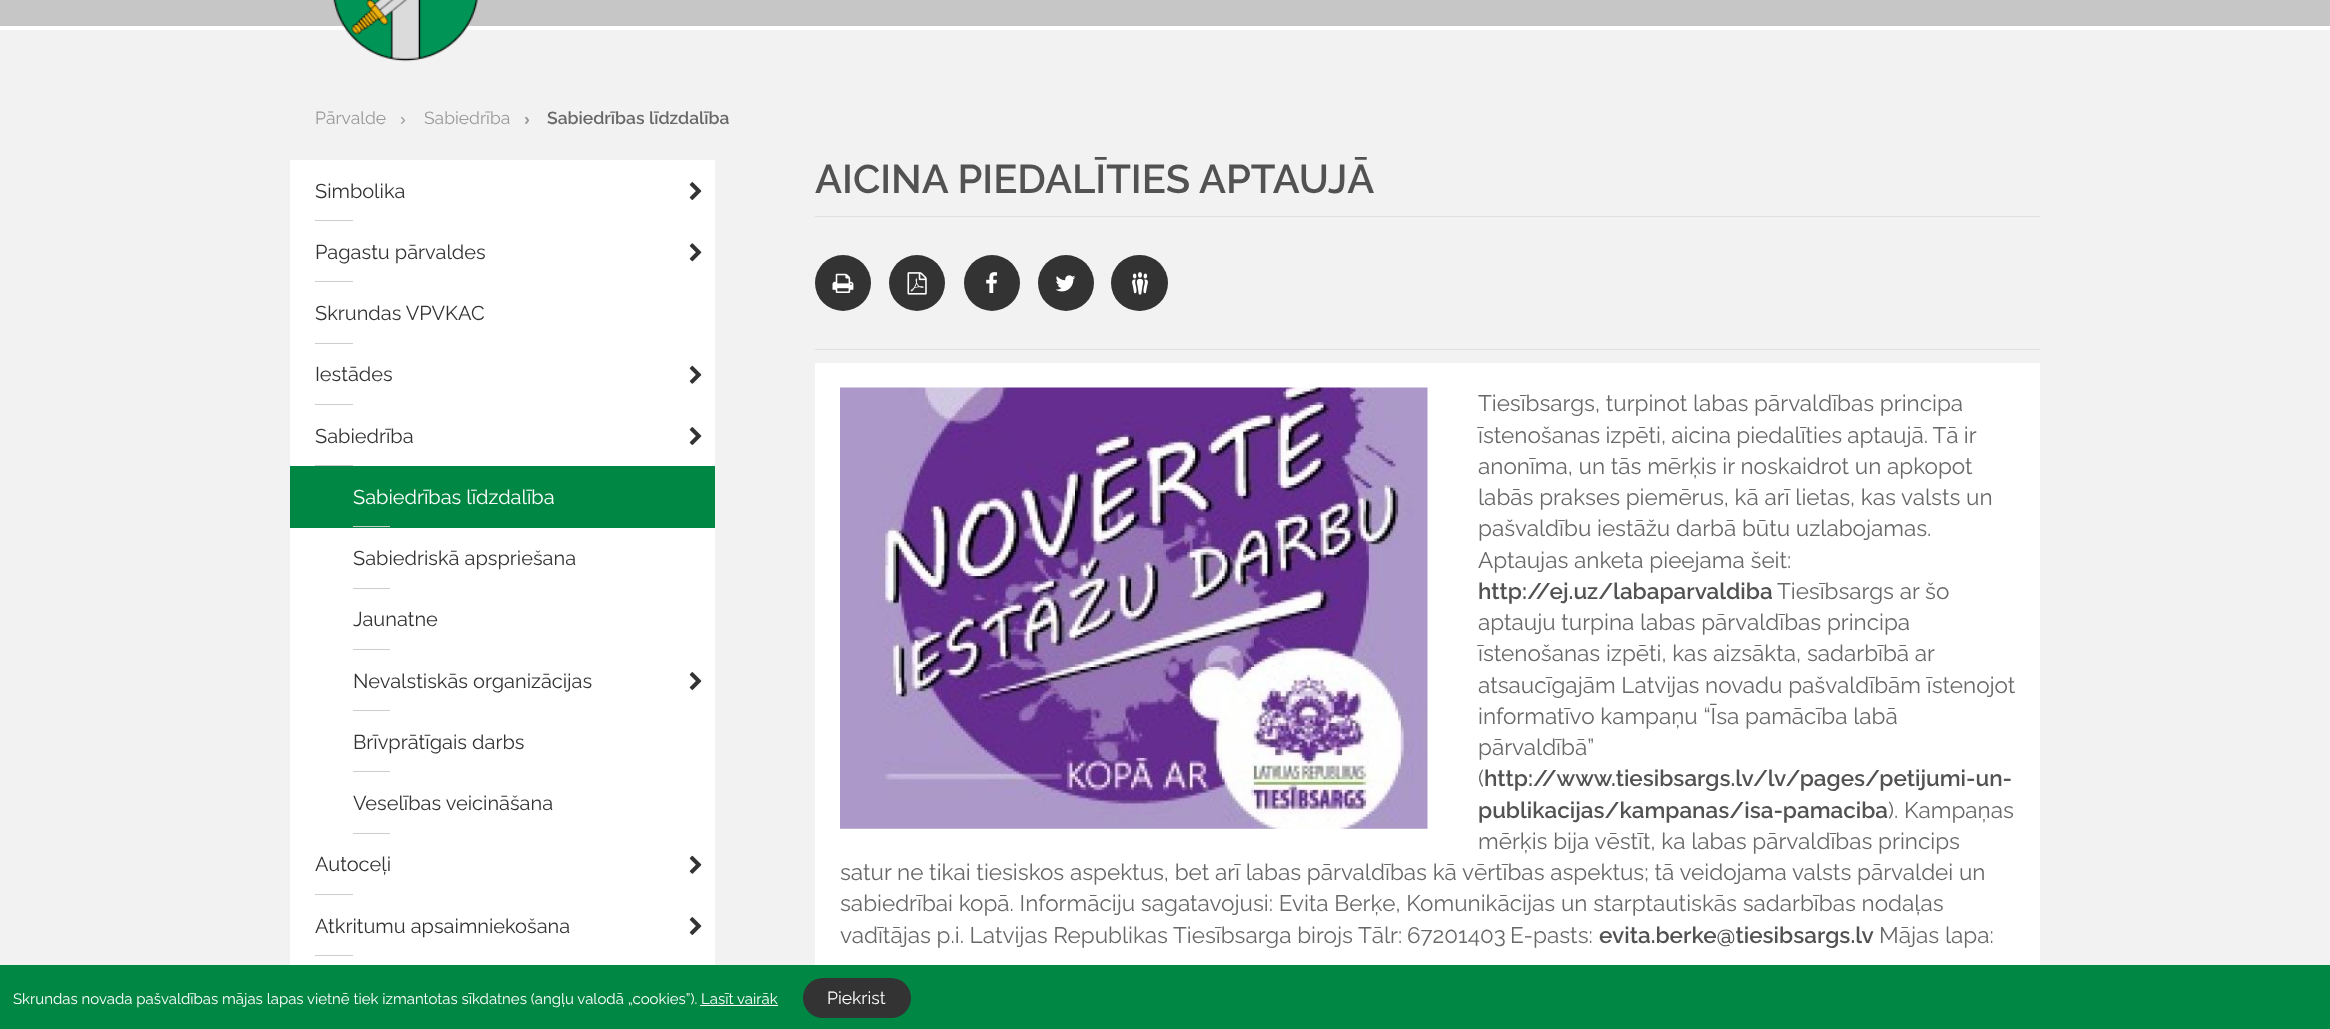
<!DOCTYPE html>
<meta charset="utf-8">
<style>body { margin: 0 } canvas { display: block }</style>
<canvas id="canvas" width="2330" height="1029"></canvas>
<img id="img1" src="img_01.png" hidden>
<img id="img2" src="img_02.png" hidden>
<img id="img3" src="img_03.png" hidden>
<img id="img4" src="img_04.png" hidden>
<img id="img5" src="img_05.png" hidden>
<img id="img6" src="img_06.png" hidden>
<img id="img7" src="img_07.png" hidden>
<img id="img8" src="img_08.png" hidden>
<img id="img9" src="img_09.png" hidden>
<img id="img10" src="img_10.png" hidden>
<script>
window.onload = function () {
	const canvas = document.getElementById("canvas");
	const ctx = canvas.getContext("2d");
	ctx.miterLimit = 4;
	ctx.fontKerning = "normal";
	function txt(s, x, y) {
		ctx.fillText(s, x, y);
	}
	function fill(x, y, w, h) {
		ctx.fillRect(x, y, w, h);
	}
	function round(x, y, w, h, r) {
		ctx.beginPath();
		ctx.roundRect(x, y, w, h, r);
		ctx.fill();
	}
	function img(id, x, y, w, h) {
		ctx.drawImage(document.getElementById(id), x, y, w, h);
	}

	ctx.fillStyle = "#F2F2F2";
	fill(0, 0, 2330, 1029);
	ctx.fillStyle = "#C6C6C6";
	fill(0, 0, 2330, 26);
	ctx.fillStyle = "#FFFFFF";
	fill(0, 26, 2330, 4);
	img("img1", 333, 0, 145, 62);
	fill(290, 160, 425, 306);
	img("img2", 689, 182, 13, 18);
	ctx.fillStyle = "#CDCDCD";
	fill(315, 220, 38, 1);
	img("img3", 689, 243, 13, 19);
	fill(315, 281, 38, 1);
	fill(315, 343, 38, 1);
	img("img4", 689, 365, 13, 19);
	fill(315, 404, 38, 1);
	img("img2", 689, 427, 13, 18);
	fill(315, 465, 38, 1);
	ctx.fillStyle = "#008744";
	fill(290, 466, 425, 62);
	ctx.fillStyle = "#CDCDCD";
	fill(353, 526, 37, 1);
	ctx.fillStyle = "#FFFFFF";
	fill(290, 528, 425, 437);
	ctx.fillStyle = "#CDCDCD";
	fill(353, 588, 37, 1);
	fill(353, 649, 37, 1);
	img("img2", 689, 672, 13, 18);
	fill(353, 710, 37, 1);
	fill(353, 771, 37, 1);
	fill(353, 833, 37, 1);
	img("img4", 689, 855, 13, 19);
	fill(315, 894, 38, 1);
	img("img2", 689, 917, 13, 18);
	fill(315, 955, 38, 1);
	ctx.fillStyle = "#DFE0DE";
	fill(815, 216, 1225, 1);
	fill(815, 349, 1225, 1);
	ctx.fillStyle = "#333333";
	ctx.beginPath();
	ctx.arc(843, 283, 28, 0, Math.PI * 2);
	ctx.fill();
	img("img5", 832, 273, 22, 20);
	ctx.beginPath();
	ctx.arc(917, 283, 28, 0, Math.PI * 2);
	ctx.fill();
	img("img6", 907, 272, 20, 23);
	ctx.beginPath();
	ctx.arc(992, 283, 28, 0, Math.PI * 2);
	ctx.fill();
	img("img7", 986, 272, 12, 21);
	ctx.beginPath();
	ctx.arc(1066, 283, 28, 0, Math.PI * 2);
	ctx.fill();
	img("img8", 1055, 275, 21, 17);
	round(1111, 255, 57, 56, 28);
	img("img9", 1132, 272, 16, 23);
	ctx.fillStyle = "#FFFFFF";
	fill(815, 363, 1225, 602);
	img("img10", 840, 387, 588, 442);
	ctx.fillStyle = "#008744";
	fill(0, 965, 2330, 64);
	ctx.fillStyle = "#FFFFFF";
	fill(700, 1005, 78, 1);
	ctx.fillStyle = "#333333";
	round(803, 978, 108, 40, 20);
	ctx.font = "17.5px Raleway";
	ctx.fillStyle = "#999999";
	txt("Pārvalde", 315, 124);
	ctx.font = "17.5px Liberation Sans";
	txt("›", 400, 125);
	ctx.font = "17.5px Raleway";
	txt("Sabiedrība", 424, 124);
	ctx.font = "bold 17.5px Liberation Sans";
	txt("›", 524, 125);
	ctx.font = "600 17.5px Raleway";
	ctx.fillStyle = "#686868";
	txt("Sabiedrības līdzdalība", 547, 124);
	ctx.font = "20px Raleway";
	ctx.fillStyle = "#333333";
	txt("Simbolika", 315, 198);
	txt("Pagastu pārvaldes", 315, 259);
	txt("Skrundas VPVKAC", 315, 320);
	txt("Iestādes", 315, 381);
	txt("Sabiedrība", 315, 443);
	ctx.fillStyle = "#FFFFFF";
	txt("Sabiedrības līdzdalība", 353, 504);
	ctx.fillStyle = "#333333";
	txt("Sabiedriskā apspriešana", 353, 565);
	txt("Jaunatne", 353, 626);
	txt("Nevalstiskās organizācijas", 353, 688);
	txt("Brīvprātīgais darbs", 353, 749);
	txt("Veselības veicināšana", 353, 810);
	txt("Autoceļi", 315, 871);
	txt("Atkritumu apsaimniekošana", 315, 933);
	ctx.font = "600 40px Raleway";
	ctx.fillStyle = "#525252";
	txt("AICINA PIEDALĪTIES APTAUJĀ", 815, 193);
	ctx.font = "22.5px Raleway";
	ctx.fillStyle = "#686868";
	txt("Tiesībsargs, turpinot labas pārvaldības principa", 1478, 411);
	ctx.wordSpacing = "-0.5px";
	txt("īstenošanas izpēti, aicina piedalīties aptaujā. Tā ir", 1478, 443);
	ctx.wordSpacing = "0px";
	txt("anonīma, un tās mērķis ir noskaidrot un apkopot", 1478, 474);
	txt("labās prakses piemērus, kā arī lietas, kas valsts un", 1478, 505);
	txt("pašvaldību iestāžu darbā būtu uzlabojamas.", 1478, 536);
	txt("Aptaujas anketa pieejama šeit:", 1478, 568);
	ctx.font = "600 22.5px Raleway";
	ctx.fillStyle = "#525252";
	txt("http://ej.uz/labaparvaldiba", 1478, 599);
	ctx.font = "22.5px Raleway";
	ctx.fillStyle = "#686868";
	txt("Tiesībsargs ar šo", 1777, 599);
	txt("aptauju turpina labas pārvaldības principa", 1478, 630);
	txt("īstenošanas izpēti, kas aizsākta, sadarbībā ar", 1478, 661);
	txt("atsaucīgajām Latvijas novadu pašvaldībām īstenojot", 1478, 693);
	txt("informatīvo kampaņu “Īsa pamācība labā", 1478, 724);
	txt("pārvaldībā”", 1478, 755);
	txt("(", 1478, 786);
	ctx.font = "600 22.5px Raleway";
	ctx.fillStyle = "#525252";
	txt("http://www.tiesibsargs.lv/lv/pages/petijumi-un-", 1484, 786);
	txt("publikacijas/kampanas/isa-pamaciba", 1478, 818);
	ctx.font = "22.5px Raleway";
	ctx.fillStyle = "#686868";
	txt("). Kampaņas", 1888, 818);
	txt("mērķis bija vēstīt, ka labas pārvaldības princips", 1478, 849);
	txt("satur ne tikai tiesiskos aspektus, bet arī labas pārvaldības kā vērtības aspektus; tā veidojama valsts pārvaldei un", 840, 880);
	txt("sabiedrībai kopā. Informāciju sagatavojusi: Evita Berķe, Komunikācijas un starptautiskās sadarbības nodaļas", 840, 911);
	txt("vadītājas p.i. Latvijas Republikas Tiesībsarga birojs", 840, 943);
	ctx.wordSpacing = "-1px";
	txt("Tālr: 67201403", 1358, 943);
	ctx.wordSpacing = "0px";
	txt("E-pasts:", 1510, 943);
	ctx.font = "600 22.5px Raleway";
	ctx.fillStyle = "#525252";
	txt("evita.berke@tiesibsargs.lv", 1599, 943);
	ctx.font = "22.5px Raleway";
	ctx.fillStyle = "#686868";
	txt("Mājas lapa:", 1879, 943);
	ctx.font = "15px Raleway";
	ctx.fillStyle = "#FFFFFF";
	txt("Skrundas novada pašvaldības mājas lapas vietnē tiek izmantotas sīkdatnes (angļu valodā „cookies”). Lasīt vairāk", 13, 1004);
	ctx.font = "17.5px Raleway";
	txt("Piekrist", 827, 1004);
};
</script>
